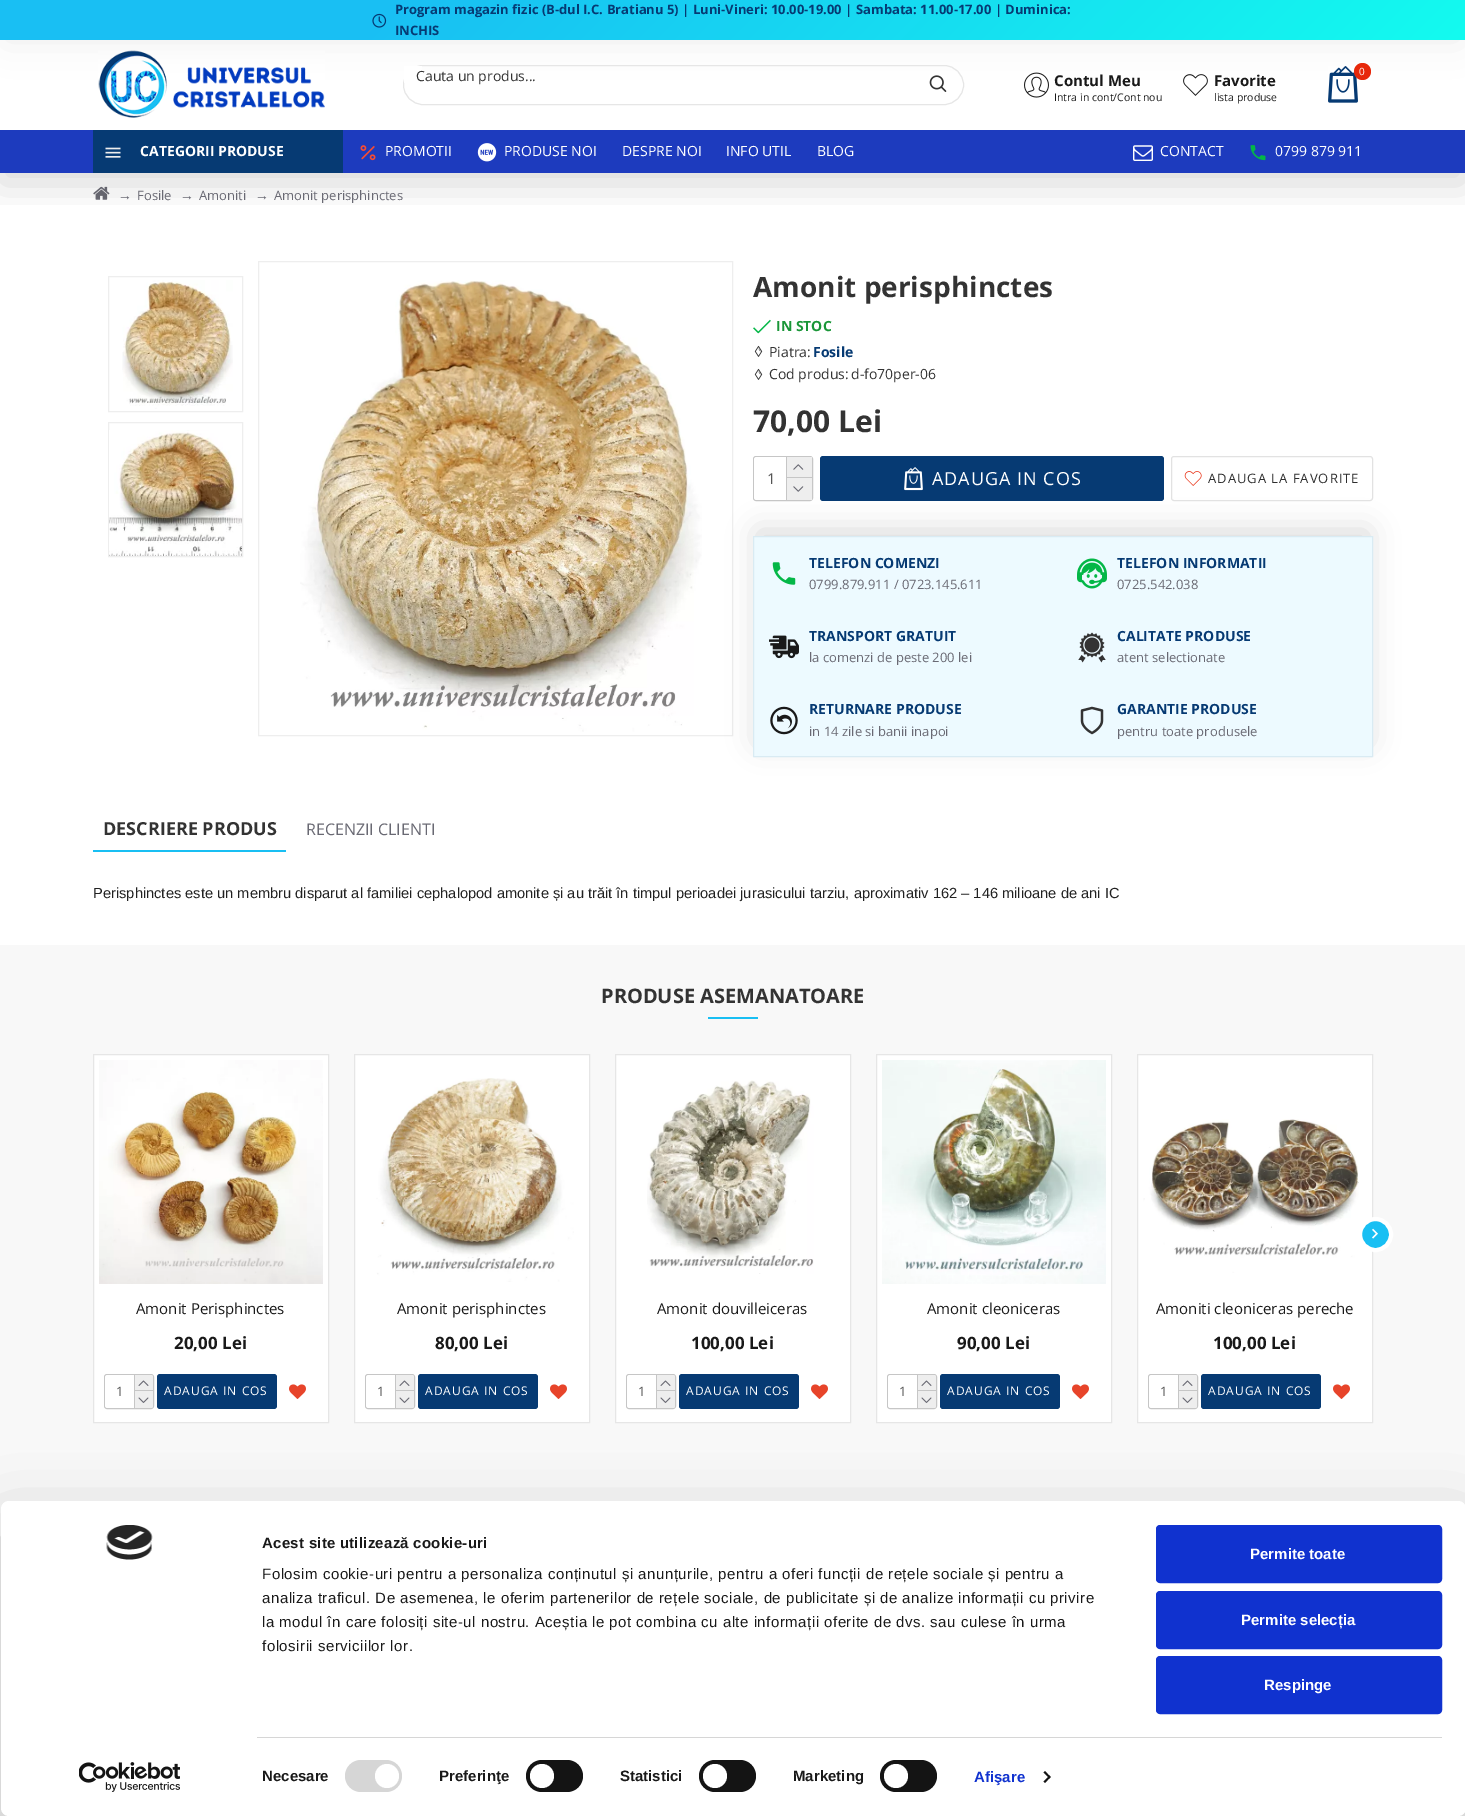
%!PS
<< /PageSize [1465 1816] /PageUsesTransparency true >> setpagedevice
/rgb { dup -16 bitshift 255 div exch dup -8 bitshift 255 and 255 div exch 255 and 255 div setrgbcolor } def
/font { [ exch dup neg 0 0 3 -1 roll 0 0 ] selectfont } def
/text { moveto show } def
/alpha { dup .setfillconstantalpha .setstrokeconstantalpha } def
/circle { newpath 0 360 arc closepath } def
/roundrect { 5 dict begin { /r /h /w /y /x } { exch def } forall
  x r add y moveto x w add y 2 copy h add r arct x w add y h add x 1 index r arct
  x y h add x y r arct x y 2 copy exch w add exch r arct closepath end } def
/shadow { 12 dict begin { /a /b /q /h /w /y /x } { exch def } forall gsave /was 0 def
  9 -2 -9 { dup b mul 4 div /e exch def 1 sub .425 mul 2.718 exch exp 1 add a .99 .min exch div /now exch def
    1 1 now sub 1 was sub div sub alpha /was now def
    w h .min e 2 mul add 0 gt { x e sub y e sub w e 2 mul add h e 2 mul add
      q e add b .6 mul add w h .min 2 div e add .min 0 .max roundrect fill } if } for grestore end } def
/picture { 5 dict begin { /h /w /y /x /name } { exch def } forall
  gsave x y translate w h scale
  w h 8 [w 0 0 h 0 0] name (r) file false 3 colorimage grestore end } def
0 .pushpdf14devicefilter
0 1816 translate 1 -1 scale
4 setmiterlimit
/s1 { /OpenSans-Bold 13 font 16#063A73 rgb } def
/s2 { /OpenSans-Regular 14 font 16#333333 rgb } def
/s3 { /OpenSans-Regular 10 font 16#FFFFFF rgb } def
/s4 { /OpenSans-Bold 15 font 16#191919 rgb } def
/s5 { /OpenSans-Regular 10.5 font 16#191919 rgb } def
/s6 { /OpenSans-Bold 14 font 16#FFFFFF rgb } def
/s7 { /OpenSans-Regular 14 font 16#FFFFFF rgb } def
/s8 { /LiberationSerif-Regular 14 font 16#696973 rgb } def
/s9 { /OpenSans-Regular 13 font 16#696973 rgb } def
/s10 { /OpenSans-Bold 28 font 16#333333 rgb } def
/s11 { /OpenSans-Bold 14 font 16#1A9638 rgb } def
/s12 { /OpenSans-Bold 14 font 16#063A73 rgb } def
/s13 { /OpenSans-Bold 30 font 16#333333 rgb } def
/s14 { /OpenSans-Regular 15 font 16#555555 rgb } def
/s15 { /OpenSans-Bold 18 font 16#333333 rgb } def
/s16 { /OpenSans-Regular 16 font 16#696973 rgb } def
/s17 { /LiberationSans-Regular 14.67 font 16#212121 rgb } def
/s18 { /OpenSans-Bold 20 font 16#333333 rgb } def
/s19 { /OpenSans-Regular 15 font 16#191919 rgb } def
/s20 { /OpenSans-Bold 17 font 16#191919 rgb } def
/s21 { /OpenSans-Regular 13 font 16#555555 rgb } def
/s22 { /LiberationSans-Bold 15 font 16#191919 rgb } def
/s23 { /LiberationSans-Bold 15 font 16#1032CF rgb } def
/s24 { /LiberationSans-Bold 15 font 16#FFFFFF rgb } def
16#FFFFFF rgb
0 0 1465 1816 rectfill
(pic12.raw) 93 186 17 14 picture
gsave
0 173 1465 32 rectclip
16#000000 rgb
0 10 1465 173 0 20 0.15 shadow
grestore
16#000000 rgb
5 10 1455 30 0 17.5 0.07 shadow
gsave 0 0 moveto 1465 0 lineto 1465 40 lineto 0 40 lineto closepath clip newpath
<< /ShadingType 2 /ColorSpace /DeviceRGB /Coords [1109 396 356 -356] /Extend [true true] /Function << /FunctionType 3 /Domain [0 1] /Functions [<< /FunctionType 2 /Domain [0 1] /C0 [0.075 0.984 0.937] /C1 [0.098 0.749 0.953] /N 1 >> << /FunctionType 2 /Domain [0 1] /C0 [0.098 0.749 0.953] /C1 [0.098 0.749 0.953] /N 1 >>] /Bounds [0.74] /Encode [0 1 0 1] >> >> shfill grestore
(pic1.raw) 372 13 15 15 picture
s1
(Program magazin fizic \(B-dul I.C. Bratianu 5\) | Luni-Vineri: 10.00-19.00 | Sambata: 11.00-17.00 | Duminica:) 395 14 text
(INCHIS) 395 35 text
(pic2.raw) 98 50 227 68 picture
16#E6E6E6 rgb
403.5 65.5 560 39 19.5 roundrect stroke
16#FFFFFF rgb
404 66 18 17 rectfill
s2
(Cauta un produs...) 416 81 text
(pic3.raw) 929 75 18 17 picture
(pic4.raw) 1328 66 30 37 picture
16#E7280A rgb
1362.5 71.5 8.5 circle fill
s3
(0) 1359 75 text
(pic5.raw) 1024 72 25 26 picture
s4
(Contul Meu) 1054 86 text
s5
(Intra in cont/Cont nou) 1054 101 text
(pic6.raw) 1183 74 25 22 picture
s4
(Favorite) 1214 86 text
s5
(lista produse) 1214 101 text
16#1D3BBE rgb
0 130 1465 43 rectfill
16#063A73 rgb
93 130 250 43 rectfill
(pic7.raw) 105 147 16 11 picture
s6
(CATEGORII PRODUSE) 140 156 text
(pic8.raw) 360 145 16 16 picture
s7
(PROMOTII) 385 156 text
(pic9.raw) 477 143 20 19 picture
(PRODUSE NOI) 504 156 text
(DESPRE NOI) 622 156 text
(INFO UTIL) 726 156 text
(BLOG) 817 156 text
(pic10.raw) 1133 145 20 16 picture
(CONTACT) 1160 156 text
(pic11.raw) 1250 145 16 16 picture
(0799 879 911) 1275 156 text
s8
(→) 118 200 text
s9
(Fosile) 137 200 text
s8
(→) 180 200 text
s9
(Amoniti) 199 200 text
s8
(→) 255 200 text
s9
(Amonit perisphinctes) 274 200 text
16#EEEEEE rgb
108.5 276.5 134 135 rectstroke
(pic13.raw) 122 280 111 129 picture
108.5 422.5 134 134 rectstroke
(pic14.raw) 109 430 133 126 picture
258.5 261.5 474 474 rectstroke
(pic15.raw) 300 280 402 452 picture
s10
(Amonit perisphinctes) 753 297 text
(pic16.raw) 753 319 18 15 picture
s11
(IN STOC) 776 331 text
(pic17.raw) 754 345 9 12 picture
s2
(Piatra:) 769 357 text
s12
(Fosile) 813 357 text
(pic17.raw) 754 368 9 12 picture
s2
(Cod produs:) 769 379 text
(d-fo70per-06) 851 379 text
s13
(70,00 Lei) 753 432 text
16#000000 rgb
758 531 610 211 0 15 0.15 shadow
16#C6C6C6 rgb
753.5 456.5 59 44 2.5 roundrect stroke
16#FFFFFF rgb
754 457 58 43 3 roundrect fill
s14
(1) 767 484 text
16#C6C6C6 rgb
786 457 1 43 rectfill
16#EEEEEE rgb
787 457 25 20 rectfill
16#C6C6C6 rgb
787 477 25 1 rectfill
(pic18.raw) 793 464 11 6 picture
16#EEEEEE rgb
787 478 25 22 rectfill
(pic19.raw) 793 486 11 6 picture
16#063A73 rgb
820 456 344 45 3 roundrect fill
(pic20.raw) 904 467 19 24 picture
/OpenSans-Regular 18 font
16#FFFFFF rgb
932 485 moveto 1 0 (ADAUGA IN COS) ashow
16#E2E2E2 rgb
1171.5 456.5 201 44 2.5 roundrect stroke
(pic21.raw) 1184 471 18 15 picture
/OpenSans-Regular 13 font
16#2D2D2D rgb
1208 483 moveto 1 0 (ADAUGA LA FAVORITE) ashow
16#EDFAFF rgb
753.5 536.5 moveto 1372.5 536.5 lineto 1372.5 756.5 lineto 753.5 756.5 lineto closepath gsave fill grestore
16#D9EBF3 rgb
stroke
(pic22.raw) 772 562 24 23 picture
s12
(TELEFON COMENZI) 809 568 text
s9
(0799.879.911 / 0723.145.611) 809 589 text
(pic23.raw) 1077 558 30 31 picture
s12
(TELEFON INFORMATII) 1117 568 text
s9
(0725.542.038) 1117 589 text
(pic24.raw) 769 635 30 24 picture
s12
(TRANSPORT GRATUIT) 809 641 text
s9
(la comenzi de peste 200 lei) 809 662 text
(pic25.raw) 1078 632 28 31 picture
s12
(CALITATE PRODUSE) 1117 641 text
s9
(atent selectionate) 1117 662 text
(pic26.raw) 770 706 28 29 picture
s12
(RETURNARE PRODUSE) 809 714 text
s9
(in 14 zile si banii inapoi) 809 736 text
(pic27.raw) 1080 706 24 29 picture
s12
(GARANTIE PRODUSE) 1117 714 text
s9
(pentru toate produsele) 1117 736 text
16#19BFF3 rgb
93 850 193 2 rectfill
s15
(DESCRIERE PRODUS) 103 835 text
s16
(RECENZII CLIENTI) 306 835 text
s17
(Perisphinctes este un membru disparut al familiei cephalopod amonite și au trăit în timpul perioadei jurasicului tarziu, aproximativ 162 – 146 milioane de ani IC) 93 898 text
16#F8F8F8 rgb
0 945 1465 568 rectfill
s18
(PRODUSE ASEMANATOARE) 601 1003 text
16#19BFF3 rgb
708 1017 50 2 rectfill
16#FFFFFF rgb
1137.5 1054.5 moveto 1372.5 1054.5 lineto 1372.5 1422.5 lineto 1137.5 1422.5 lineto closepath gsave fill grestore
16#E6E6E6 rgb
stroke
(pic36.raw) 1143 1119 216 154 picture
16#19BFF3 rgb
1375.5 1234.5 15.5 circle gsave fill grestore
16#FFFFFF rgb
4 setlinewidth
stroke
(pic28.raw) 1372 1228 6 11 picture
93.5 1054.5 moveto 328.5 1054.5 lineto 328.5 1422.5 lineto 93.5 1422.5 lineto closepath gsave fill grestore
16#E6E6E6 rgb
1 setlinewidth
stroke
(pic29.raw) 99 1060 224 224 picture
s19
(Amonit Perisphinctes) 136 1314 text
s20
(20,00 Lei) 174 1349 text
16#C6C6C6 rgb
104.5 1374.5 49 34 2.5 roundrect stroke
gsave
105 1375 48 33 2 roundrect clip newpath
16#FFFFFF rgb
105 1375 48 33 3 roundrect fill
grestore
s21
(1) 116 1396 text
16#C6C6C6 rgb
134 1375 1 33 rectfill
16#EEEEEE rgb
135 1375 moveto 151 1375 lineto 152 1375 153 1376 153 1377 curveto 153 1390 lineto 135 1390 lineto closepath fill
16#C6C6C6 rgb
135 1390 18 1 rectfill
(pic30.raw) 138 1380 11 6 picture
16#EEEEEE rgb
135 1391 moveto 153 1391 lineto 153 1406 lineto 153 1407 152 1408 151 1408 curveto 135 1408 lineto closepath fill
(pic31.raw) 138 1397 11 6 picture
16#063A73 rgb
157 1374 120 35 3 roundrect fill
/OpenSans-Regular 12 font
16#FFFFFF rgb
164 1395 moveto 1 0 (ADAUGA IN COS) ashow
(pic32.raw) 289 1384 17 15 picture
354.5 1054.5 moveto 589.5 1054.5 lineto 589.5 1422.5 lineto 354.5 1422.5 lineto closepath gsave fill grestore
16#E6E6E6 rgb
stroke
(pic33.raw) 376 1078 198 204 picture
s19
(Amonit perisphinctes) 397 1314 text
s20
(80,00 Lei) 435 1349 text
16#C6C6C6 rgb
365.5 1374.5 49 34 2.5 roundrect stroke
gsave
366 1375 48 33 2 roundrect clip newpath
16#FFFFFF rgb
366 1375 48 33 3 roundrect fill
grestore
s21
(1) 377 1396 text
16#C6C6C6 rgb
395 1375 1 33 rectfill
16#EEEEEE rgb
396 1375 moveto 412 1375 lineto 413 1375 414 1376 414 1377 curveto 414 1390 lineto 396 1390 lineto closepath fill
16#C6C6C6 rgb
396 1390 18 1 rectfill
(pic30.raw) 399 1380 11 6 picture
16#EEEEEE rgb
396 1391 moveto 414 1391 lineto 414 1406 lineto 414 1407 413 1408 412 1408 curveto 396 1408 lineto closepath fill
(pic31.raw) 399 1397 11 6 picture
16#063A73 rgb
418 1374 120 35 3 roundrect fill
/OpenSans-Regular 12 font
16#FFFFFF rgb
425 1395 moveto 1 0 (ADAUGA IN COS) ashow
(pic32.raw) 550 1384 17 15 picture
615.5 1054.5 moveto 850.5 1054.5 lineto 850.5 1422.5 lineto 615.5 1422.5 lineto closepath gsave fill grestore
16#E6E6E6 rgb
stroke
(pic34.raw) 647 1080 167 194 picture
s19
(Amonit douvilleiceras) 657 1314 text
s20
(100,00 Lei) 691 1349 text
16#C6C6C6 rgb
626.5 1374.5 49 34 2.5 roundrect stroke
gsave
627 1375 48 33 2 roundrect clip newpath
16#FFFFFF rgb
627 1375 48 33 3 roundrect fill
grestore
s21
(1) 638 1396 text
16#C6C6C6 rgb
656 1375 1 33 rectfill
16#EEEEEE rgb
657 1375 moveto 673 1375 lineto 674 1375 675 1376 675 1377 curveto 675 1390 lineto 657 1390 lineto closepath fill
16#C6C6C6 rgb
657 1390 18 1 rectfill
(pic30.raw) 660 1380 11 6 picture
16#EEEEEE rgb
657 1391 moveto 675 1391 lineto 675 1406 lineto 675 1407 674 1408 673 1408 curveto 657 1408 lineto closepath fill
(pic31.raw) 660 1397 11 6 picture
16#063A73 rgb
679 1374 120 35 3 roundrect fill
/OpenSans-Regular 12 font
16#FFFFFF rgb
686 1395 moveto 1 0 (ADAUGA IN COS) ashow
(pic32.raw) 811 1384 17 15 picture
876.5 1054.5 moveto 1111.5 1054.5 lineto 1111.5 1422.5 lineto 876.5 1422.5 lineto closepath gsave fill grestore
16#E6E6E6 rgb
stroke
(pic35.raw) 882 1060 224 224 picture
s19
(Amonit cleoniceras) 927 1314 text
s20
(90,00 Lei) 957 1349 text
16#C6C6C6 rgb
887.5 1374.5 49 34 2.5 roundrect stroke
gsave
888 1375 48 33 2 roundrect clip newpath
16#FFFFFF rgb
888 1375 48 33 3 roundrect fill
grestore
s21
(1) 899 1396 text
16#C6C6C6 rgb
917 1375 1 33 rectfill
16#EEEEEE rgb
918 1375 moveto 934 1375 lineto 935 1375 936 1376 936 1377 curveto 936 1390 lineto 918 1390 lineto closepath fill
16#C6C6C6 rgb
918 1390 18 1 rectfill
(pic30.raw) 921 1380 11 6 picture
16#EEEEEE rgb
918 1391 moveto 936 1391 lineto 936 1406 lineto 936 1407 935 1408 934 1408 curveto 918 1408 lineto closepath fill
(pic31.raw) 921 1397 11 6 picture
16#063A73 rgb
940 1374 120 35 3 roundrect fill
/OpenSans-Regular 12 font
16#FFFFFF rgb
947 1395 moveto 1 0 (ADAUGA IN COS) ashow
(pic32.raw) 1072 1384 17 15 picture
s19
(Amoniti cleoniceras pereche) 1156 1314 text
s20
(100,00 Lei) 1213 1349 text
16#C6C6C6 rgb
1148.5 1374.5 49 34 2.5 roundrect stroke
gsave
1149 1375 48 33 2 roundrect clip newpath
16#FFFFFF rgb
1149 1375 48 33 3 roundrect fill
grestore
s21
(1) 1160 1396 text
16#C6C6C6 rgb
1178 1375 1 33 rectfill
16#EEEEEE rgb
1179 1375 moveto 1195 1375 lineto 1196 1375 1197 1376 1197 1377 curveto 1197 1390 lineto 1179 1390 lineto closepath fill
16#C6C6C6 rgb
1179 1390 18 1 rectfill
(pic30.raw) 1182 1380 11 6 picture
16#EEEEEE rgb
1179 1391 moveto 1197 1391 lineto 1197 1406 lineto 1197 1407 1196 1408 1195 1408 curveto 1179 1408 lineto closepath fill
(pic31.raw) 1182 1397 11 6 picture
16#063A73 rgb
1201 1374 120 35 3 roundrect fill
/OpenSans-Regular 12 font
16#FFFFFF rgb
1208 1395 moveto 1 0 (ADAUGA IN COS) ashow
(pic32.raw) 1333 1384 17 15 picture
16#000000 rgb
1 1531 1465 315 8 35 0.3 shadow
16#FFFFFF rgb
1 1501 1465 315 8 roundrect fill
(pic37.raw) 106 1525 47 35 picture
(pic38.raw) 79 1762 101 30 picture
/LiberationSans-Bold 15 font
16#191919 rgb
262 1548 moveto 0.25 0 (Acest site utilizează cookie-uri) ashow
/LiberationSans-Regular 15 font
262 1579 moveto 0.5 0 (Folosim cookie-uri pentru a personaliza conținutul și anunțurile, pentru a oferi funcții de rețele sociale și pentru a) ashow
262 1603 moveto 0.5 0 (analiza traficul. De asemenea, le oferim partenerilor de rețele sociale, de publicitate și de analize informații cu privire) ashow
262 1627 moveto 0.5 0 (la modul în care folosiți site-ul nostru. Aceștia le pot combina cu alte informații oferite de dvs. sau culese în urma) ashow
262 1651 moveto 0.5 0 (folosirii serviciilor lor.) ashow
16#D6D6D6 rgb
257 1737 1185 1 rectfill
s22
(Necesare) 262 1781 text
16#D6D6D6 rgb
345 1760 57 32 16 roundrect fill
16#FFFFFF rgb
387 1776 12 circle fill
s22
(Preferinţe) 439 1781 text
16#141414 rgb
526 1760 57 32 16 roundrect fill
16#FFFFFF rgb
542 1776 12 circle fill
s22
(Statistici) 620 1781 text
16#141414 rgb
699 1760 57 32 16 roundrect fill
16#FFFFFF rgb
715 1776 12 circle fill
s22
(Marketing) 793 1781 text
16#141414 rgb
880 1760 57 32 16 roundrect fill
16#FFFFFF rgb
896 1776 12 circle fill
s23
(Afişare) 974 1782 text
16#141414 rgb
1045 1771 moveto 1050.5 1777 lineto 1049.5 1778.5 lineto 1043.5 1772.5 lineto closepath fill
1049.5 1775.5 moveto 1050.5 1777 lineto 1045 1783 lineto 1043.5 1781.5 lineto closepath fill
16#1032CF rgb
1157 1526 284 56 3 roundrect gsave fill grestore
2 setlinewidth
stroke
s24
(Permite toate) 1250 1559 text
16#1032CF rgb
1157 1592 284 56 3 roundrect gsave fill grestore
stroke
s24
(Permite selecția) 1241 1625 text
16#1032CF rgb
1157 1657 284 56 3 roundrect gsave fill grestore
stroke
s24
(Respinge) 1264 1690 text
.poppdf14devicefilter showpage
